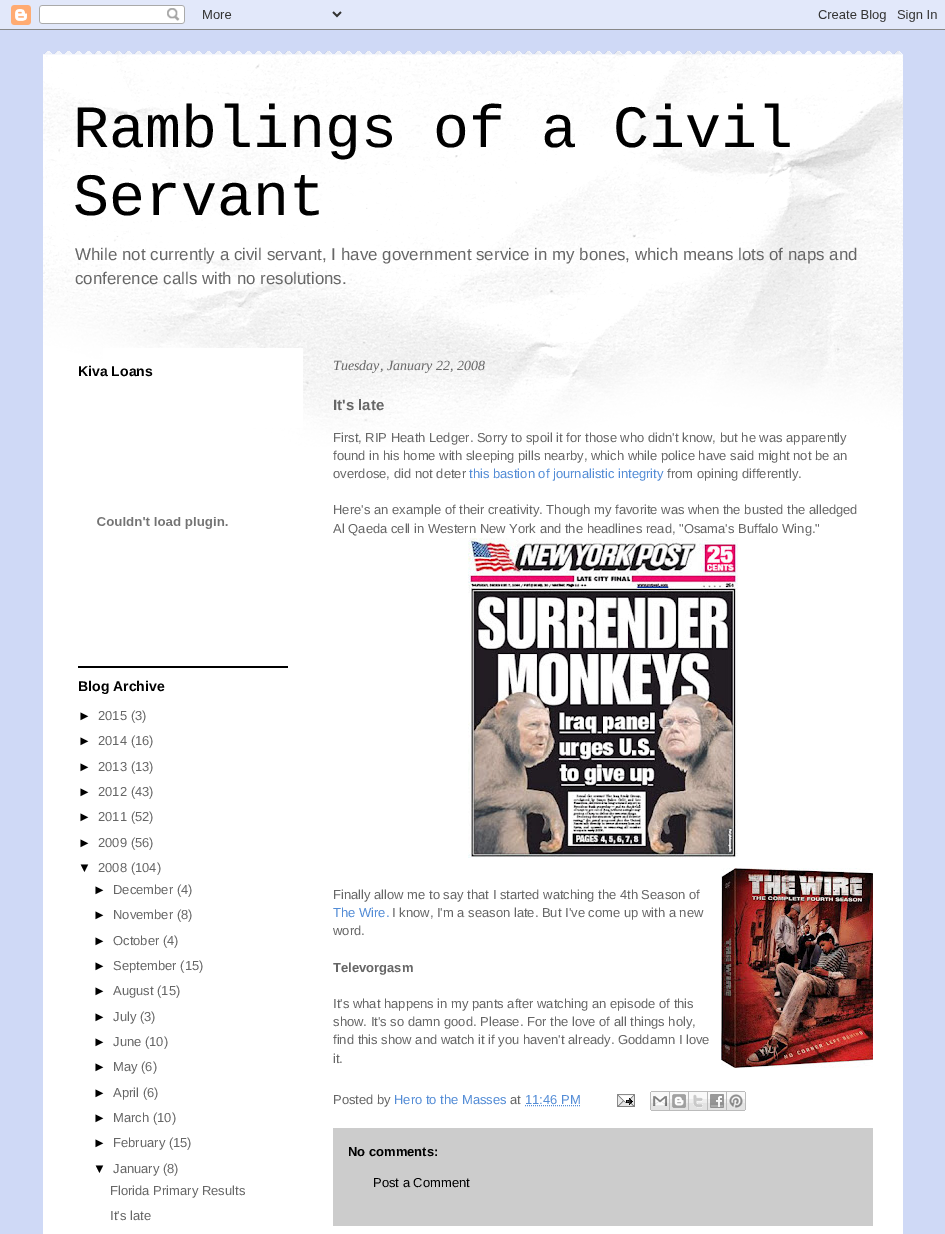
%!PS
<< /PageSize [945 1234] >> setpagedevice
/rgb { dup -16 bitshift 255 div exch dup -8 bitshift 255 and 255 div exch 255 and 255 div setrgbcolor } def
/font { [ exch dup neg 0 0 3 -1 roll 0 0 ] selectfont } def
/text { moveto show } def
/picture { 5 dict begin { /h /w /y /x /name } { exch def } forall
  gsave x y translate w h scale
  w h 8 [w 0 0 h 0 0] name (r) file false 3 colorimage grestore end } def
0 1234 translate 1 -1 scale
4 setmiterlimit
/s1 { /LiberationMono-Regular 60 font 16#000000 rgb } def
/s2 { /LiberationSans-Regular 16.9 font 16#666666 rgb } def
/s3 { /LiberationSans-Bold 14 font 16#000000 rgb } def
/s4 { /LiberationSans-Regular 13 font 16#000000 rgb } def
/s5 { /LiberationSans-Regular 13 font 16#666666 rgb } def
/s6 { /LiberationSerif-Italic 14 font 16#666666 rgb } def
/s7 { /LiberationSans-Bold 15 font 16#666666 rgb } def
/s8 { /LiberationSans-Regular 13 font 16#538CD6 rgb } def
/s9 { /LiberationSans-Bold 13 font 16#666666 rgb } def
/s10 { /LiberationSans-Bold 13 font 16#000000 rgb } def
16#CFD9F6 rgb
0 0 945 1234 rectfill
(pic1.raw) 0 0 945 30 picture
(pic2.raw) 43 51 860 4 picture
16#FFFFFF rgb
43 55 860 1179 rectfill
(pic3.raw) 43 55 860 392 picture
s1
(Ramblings of a Civil) 73 147 text
(Servant) 73 215 text
s2
(While not currently a civil servant, I have government service in my bones, which means lots of naps and) 75 260 text
(conference calls with no resolutions.) 75 284 text
16#FFFFFF rgb
103 348 200 80 rectfill
16#000000 rgb
78 666 210 2 rectfill
s3
(Kiva Loans) 78 376 text
(pic4.raw) 97 517 131 12 picture
(Blog Archive) 78 691 text
s4
(►) 78 720 text
s5
(2015 \(3\)) 98 720 text
s4
(►) 78 745 text
s5
(2014 \(16\)) 98 745 text
s4
(►) 78 771 text
s5
(2013 \(13\)) 98 771 text
s4
(►) 78 796 text
s5
(2012 \(43\)) 98 796 text
s4
(►) 78 821 text
s5
(2011 \(52\)) 98 821 text
s4
(►) 78 847 text
s5
(2009 \(56\)) 98 847 text
s4
(▼) 78 872 text
s5
(2008 \(104\)) 98 872 text
s4
(►) 93 894 text
s5
(December \(4\)) 113 894 text
s4
(►) 93 919 text
s5
(November \(8\)) 113 919 text
s4
(►) 93 945 text
s5
(October \(4\)) 113 945 text
s4
(►) 93 970 text
s5
(September \(15\)) 113 970 text
s4
(►) 93 995 text
s5
(August \(15\)) 113 995 text
s4
(►) 93 1021 text
s5
(July \(3\)) 113 1021 text
s4
(►) 93 1046 text
s5
(June \(10\)) 113 1046 text
s4
(►) 93 1071 text
s5
(May \(6\)) 113 1071 text
s4
(►) 93 1097 text
s5
(April \(6\)) 113 1097 text
s4
(►) 93 1122 text
s5
(March \(10\)) 113 1122 text
s4
(►) 93 1147 text
s5
(February \(15\)) 113 1147 text
s4
(▼) 93 1173 text
s5
(January \(8\)) 113 1173 text
(Florida Primary Results) 110 1195 text
(It's late) 110 1220 text
s6
(Tuesday, January 22, 2008) 333 370 text
s7
(It's late) 333 410 text
s5
(First, RIP Heath Ledger. Sorry to spoil it for those who didn't know, but he was apparently) 333 442 text
(found in his home with sleeping pills nearby, which while police have said might not be an) 333 460 text
(overdose, did not deter) 333 478 text
s8
(this bastion of journalistic integrity) 469 478 text
s5
(from opining differently.) 667 478 text
(Here's an example of their creativity. Though my favorite was when the busted the alledged) 333 514 text
(Al Qaeda cell in Western New York and the headlines read, "Osama's Buffalo Wing.") 333 533 text
(pic5.raw) 468 538 270 320 picture
(Finally allow me to say that I started watching the 4th Season of) 333 899 text
(pic6.raw) 721 868 152 200 picture
s8
(The Wire.) 333 917 text
s5
(I know, I'm a season late. But I've come up with a new) 392 917 text
(word.) 333 935 text
s9
(Televorgasm) 333 972 text
s5
(It's what happens in my pants after watching an episode of this) 333 1008 text
(show. It's so damn good. Please. For the love of all things holy,) 333 1026 text
(find this show and watch it if you haven't already. Goddamn I love) 333 1044 text
(it.) 333 1063 text
(Posted by) 333 1104 text
s8
(Hero to the Masses) 394 1104 text
s5
(at) 510 1104 text
s8
(11:46 PM) 525 1104 text
[1 1] 0 setdash
525 1105.5 moveto 580.5 1105.5 lineto stroke
(pic7.raw) 617 1094 18 13 picture
(pic8.raw) 650 1091 20 20 picture
(pic9.raw) 670 1091 19 20 picture
(pic10.raw) 689 1091 19 20 picture
(pic11.raw) 708 1091 19 20 picture
(pic12.raw) 727 1091 19 20 picture
16#CCCCCC rgb
333 1128 540 98 rectfill
s10
(No comments:) 348 1156 text
s4
(Post a Comment) 373 1187 text
showpage
